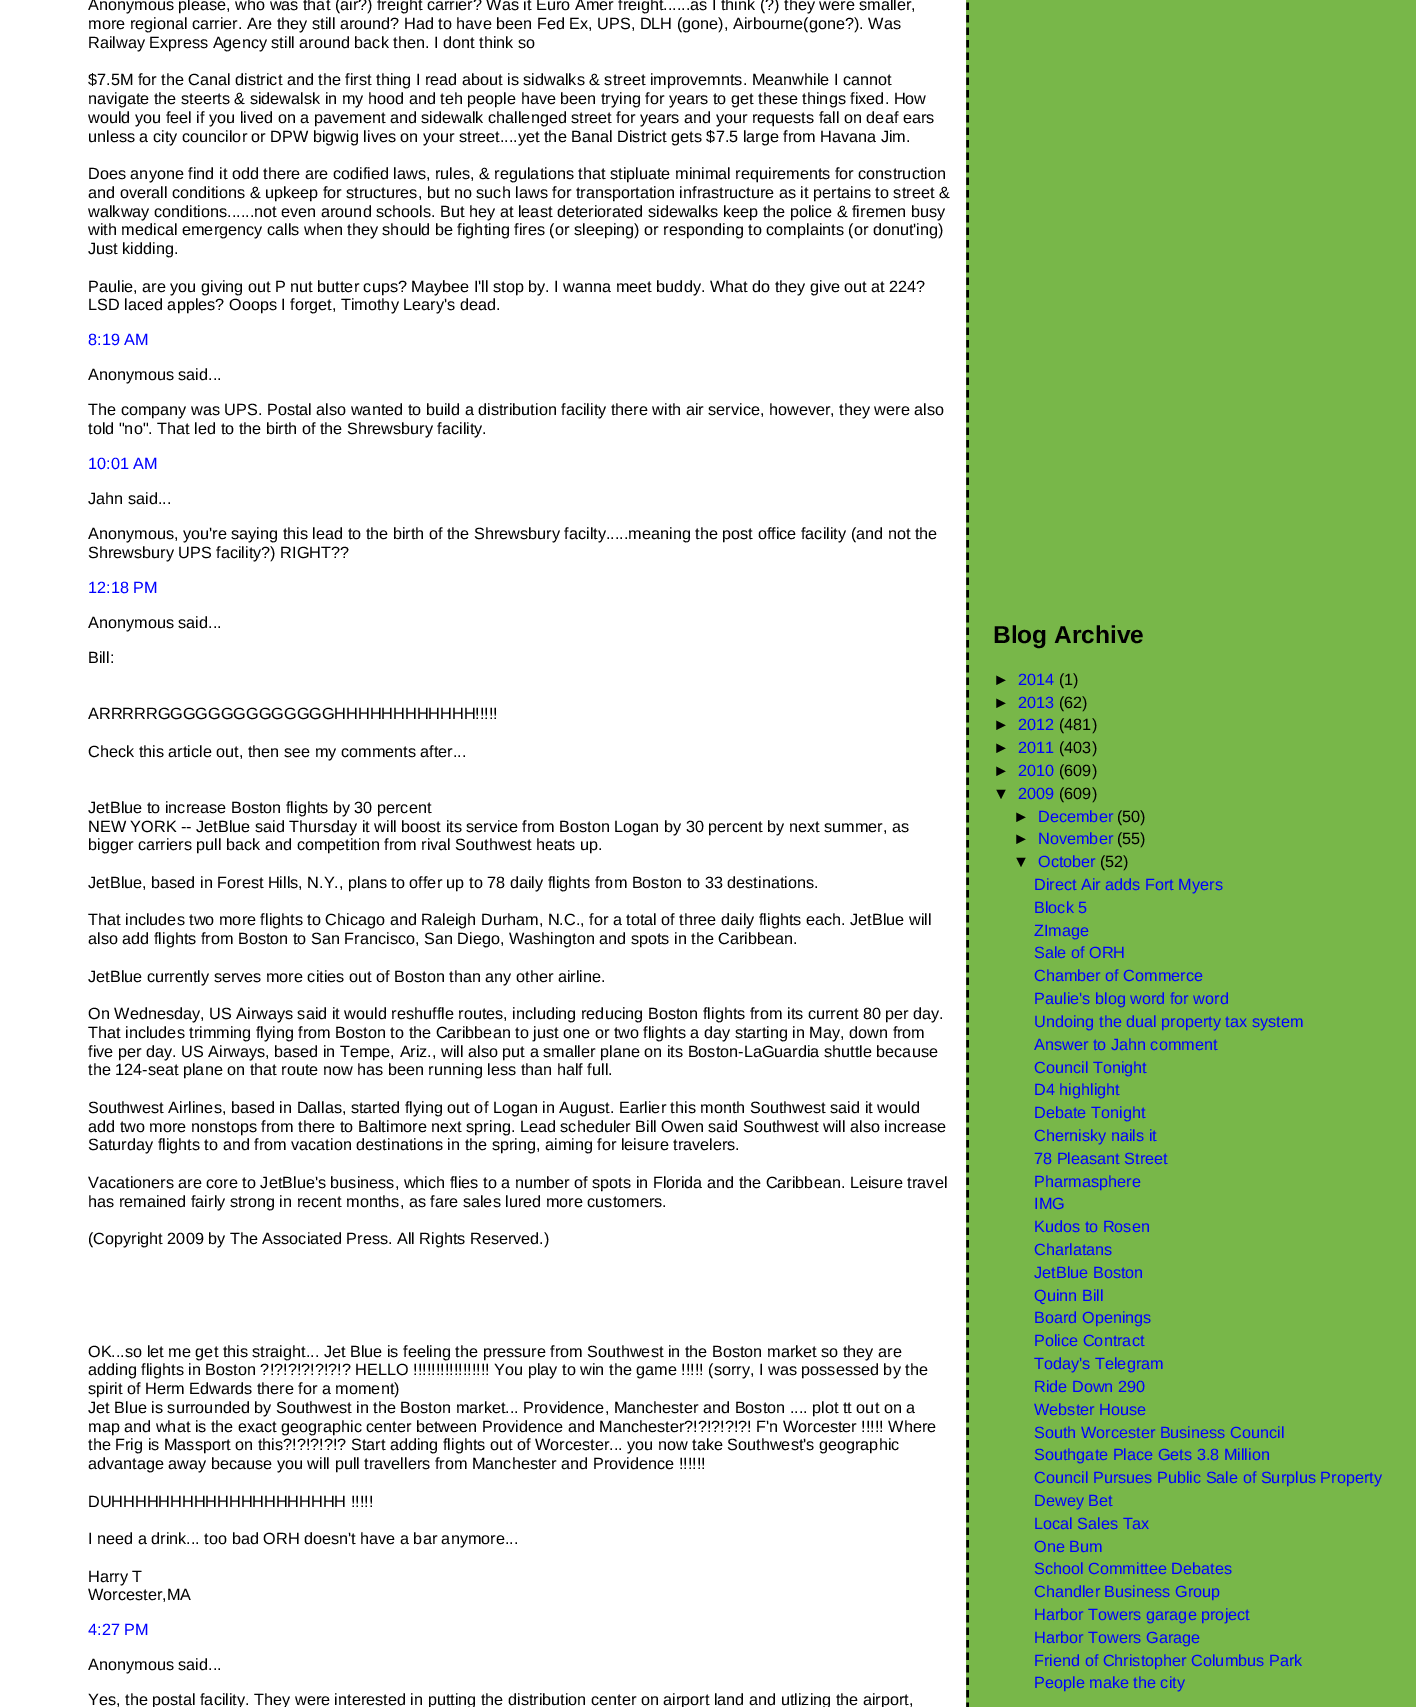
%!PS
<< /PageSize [1416 1707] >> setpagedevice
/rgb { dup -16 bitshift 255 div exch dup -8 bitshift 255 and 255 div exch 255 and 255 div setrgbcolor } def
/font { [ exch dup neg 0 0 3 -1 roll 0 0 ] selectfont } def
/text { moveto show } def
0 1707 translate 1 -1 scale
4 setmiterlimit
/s1 { /LiberationSans-Regular 16.25 font 16#000000 rgb } def
/s2 { /LiberationSans-Regular 16.25 font 16#0000FF rgb } def
/s3 { /LiberationSans-Bold 24.5 font 16#000000 rgb } def
16#FFFFFF rgb
0 0 1416 1707 rectfill
s1
(Anonymous please, who was that \(air?\) freight carrier? Was it Euro Amer freight......as I think \(?\) they were smaller,) 88 10 text
(more regional carrier. Are they still around? Had to have been Fed Ex, UPS, DLH \(gone\), Airbourne\(gone?\). Was) 88 29 text
(Railway Express Agency still around back then. I dont think so) 88 48 text
($7.5M for the Canal district and the first thing I read about is sidwalks & street improvemnts. Meanwhile I cannot) 88 85 text
(navigate the steerts & sidewalsk in my hood and teh people have been trying for years to get these things fixed. How) 88 104 text
(would you feel if you lived on a pavement and sidewalk challenged street for years and your requests fall on deaf ears) 88 123 text
(unless a city councilor or DPW bigwig lives on your street....yet the Banal District gets $7.5 large from Havana Jim.) 88 142 text
(Does anyone find it odd there are codified laws, rules, & regulations that stipluate minimal requirements for construction) 88 179 text
(and overall conditions & upkeep for structures, but no such laws for transportation infrastructure as it pertains to street &) 88 198 text
(walkway conditions......not even around schools. But hey at least deteriorated sidewalks keep the police & firemen busy) 88 217 text
(with medical emergency calls when they should be fighting fires \(or sleeping\) or responding to complaints \(or donut'ing\)) 88 235 text
(Just kidding.) 88 254 text
(Paulie, are you giving out P nut butter cups? Maybee I'll stop by. I wanna meet buddy. What do they give out at 224?) 88 292 text
(LSD laced apples? Ooops I forget, Timothy Leary's dead.) 88 310 text
s2
(8:19 AM) 88 345 text
s1
(Anonymous said...) 88 380 text
(The company was UPS. Postal also wanted to build a distribution facility there with air service, however, they were also) 88 415 text
(told "no". That led to the birth of the Shrewsbury facility.) 88 434 text
s2
(10:01 AM) 88 469 text
s1
(Jahn said...) 88 504 text
(Anonymous, you're saying this lead to the birth of the Shrewsbury facilty.....meaning the post office facility \(and not the) 88 539 text
(Shrewsbury UPS facility?\) RIGHT??) 88 558 text
s2
(12:18 PM) 88 593 text
s1
(Anonymous said...) 88 628 text
(Bill:) 88 663 text
(ARRRRRGGGGGGGGGGGGGGHHHHHHHHHHHH!!!!!) 88 719 text
(Check this article out, then see my comments after...) 88 757 text
(JetBlue to increase Boston flights by 30 percent) 88 813 text
(NEW YORK -- JetBlue said Thursday it will boost its service from Boston Logan by 30 percent by next summer, as) 88 832 text
(bigger carriers pull back and competition from rival Southwest heats up.) 88 850 text
(JetBlue, based in Forest Hills, N.Y., plans to offer up to 78 daily flights from Boston to 33 destinations.) 88 888 text
(That includes two more flights to Chicago and Raleigh Durham, N.C., for a total of three daily flights each. JetBlue will) 88 925 text
(also add flights from Boston to San Francisco, San Diego, Washington and spots in the Caribbean.) 88 944 text
(JetBlue currently serves more cities out of Boston than any other airline.) 88 982 text
(On Wednesday, US Airways said it would reshuffle routes, including reducing Boston flights from its current 80 per day.) 88 1019 text
(That includes trimming flying from Boston to the Caribbean to just one or two flights a day starting in May, down from) 88 1038 text
(five per day. US Airways, based in Tempe, Ariz., will also put a smaller plane on its Boston-LaGuardia shuttle because) 88 1057 text
(the 124-seat plane on that route now has been running less than half full.) 88 1075 text
(Southwest Airlines, based in Dallas, started flying out of Logan in August. Earlier this month Southwest said it would) 88 1113 text
(add two more nonstops from there to Baltimore next spring. Lead scheduler Bill Owen said Southwest will also increase) 88 1132 text
(Saturday flights to and from vacation destinations in the spring, aiming for leisure travelers.) 88 1150 text
(Vacationers are core to JetBlue's business, which flies to a number of spots in Florida and the Caribbean. Leisure travel) 88 1188 text
(has remained fairly strong in recent months, as fare sales lured more customers.) 88 1207 text
(\(Copyright 2009 by The Associated Press. All Rights Reserved.\)) 88 1244 text
(OK...so let me get this straight... Jet Blue is feeling the pressure from Southwest in the Boston market so they are) 88 1357 text
(adding flights in Boston ?!?!?!?!?!?!? HELLO !!!!!!!!!!!!!!!!! You play to win the game !!!!! \(sorry, I was possessed by the) 88 1375 text
(spirit of Herm Edwards there for a moment\)) 88 1394 text
(Jet Blue is surrounded by Southwest in the Boston market... Providence, Manchester and Boston .... plot tt out on a) 88 1413 text
(map and what is the exact geographic center between Providence and Manchester?!?!?!?!?! F'n Worcester !!!!! Where) 88 1432 text
(the Frig is Massport on this?!?!?!?!? Start adding flights out of Worcester... you now take Southwest's geographic) 88 1450 text
(advantage away because you will pull travellers from Manchester and Providence !!!!!!) 88 1469 text
(DUHHHHHHHHHHHHHHHHHHHH !!!!!) 88 1507 text
(I need a drink... too bad ORH doesn't have a bar anymore...) 88 1544 text
(Harry T) 88 1582 text
(Worcester,MA) 88 1600 text
s2
(4:27 PM) 88 1635 text
s1
(Anonymous said...) 88 1670 text
(Yes, the postal facility. They were interested in putting the distribution center on airport land and utlizing the airport,) 88 1705 text
16#78B749 rgb
966 0 450 1707 rectfill
16#000000 rgb
2.5 setlinewidth
[7.5 5] 0 setdash
967.5 -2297.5 moveto 967.5 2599 lineto stroke
s3
(Blog Archive) 993 643 text
s1
(►) 993 685 text
s2
(2014) 1018 685 text
s1
(\(1\)) 1059 685 text
(►) 993 708 text
s2
(2013) 1018 708 text
s1
(\(62\)) 1059 708 text
(►) 993 730 text
s2
(2012) 1018 730 text
s1
(\(481\)) 1059 730 text
(►) 993 753 text
s2
(2011) 1018 753 text
s1
(\(403\)) 1059 753 text
(►) 993 776 text
s2
(2010) 1018 776 text
s1
(\(609\)) 1059 776 text
(▼) 993 799 text
s2
(2009) 1018 799 text
s1
(\(609\)) 1059 799 text
(►) 1013 822 text
s2
(December) 1038 822 text
s1
(\(50\)) 1117 822 text
(►) 1013 844 text
s2
(November) 1038 844 text
s1
(\(55\)) 1117 844 text
(▼) 1013 867 text
s2
(October) 1038 867 text
s1
(\(52\)) 1100 867 text
s2
(Direct Air adds Fort Myers) 1034 890 text
(Block 5) 1034 913 text
(ZImage) 1034 936 text
(Sale of ORH) 1034 958 text
(Chamber of Commerce) 1034 981 text
(Paulie's blog word for word) 1034 1004 text
(Undoing the dual property tax system) 1034 1027 text
(Answer to Jahn comment) 1034 1050 text
(Council Tonight) 1034 1073 text
(D4 highlight) 1034 1095 text
(Debate Tonight) 1034 1118 text
(Chernisky nails it) 1034 1141 text
(78 Pleasant Street) 1034 1164 text
(Pharmasphere) 1034 1187 text
(IMG) 1034 1209 text
(Kudos to Rosen) 1034 1232 text
(Charlatans) 1034 1255 text
(JetBlue Boston) 1034 1278 text
(Quinn Bill) 1034 1301 text
(Board Openings) 1034 1323 text
(Police Contract) 1034 1346 text
(Today's Telegram) 1034 1369 text
(Ride Down 290) 1034 1392 text
(Webster House) 1034 1415 text
(South Worcester Business Council) 1034 1438 text
(Southgate Place Gets 3.8 Million) 1034 1460 text
(Council Pursues Public Sale of Surplus Property) 1034 1483 text
(Dewey Bet) 1034 1506 text
(Local Sales Tax) 1034 1529 text
(One Bum) 1034 1552 text
(School Committee Debates) 1034 1574 text
(Chandler Business Group) 1034 1597 text
(Harbor Towers garage project) 1034 1620 text
(Harbor Towers Garage) 1034 1643 text
(Friend of Christopher Columbus Park) 1034 1666 text
(People make the city) 1034 1688 text
showpage
